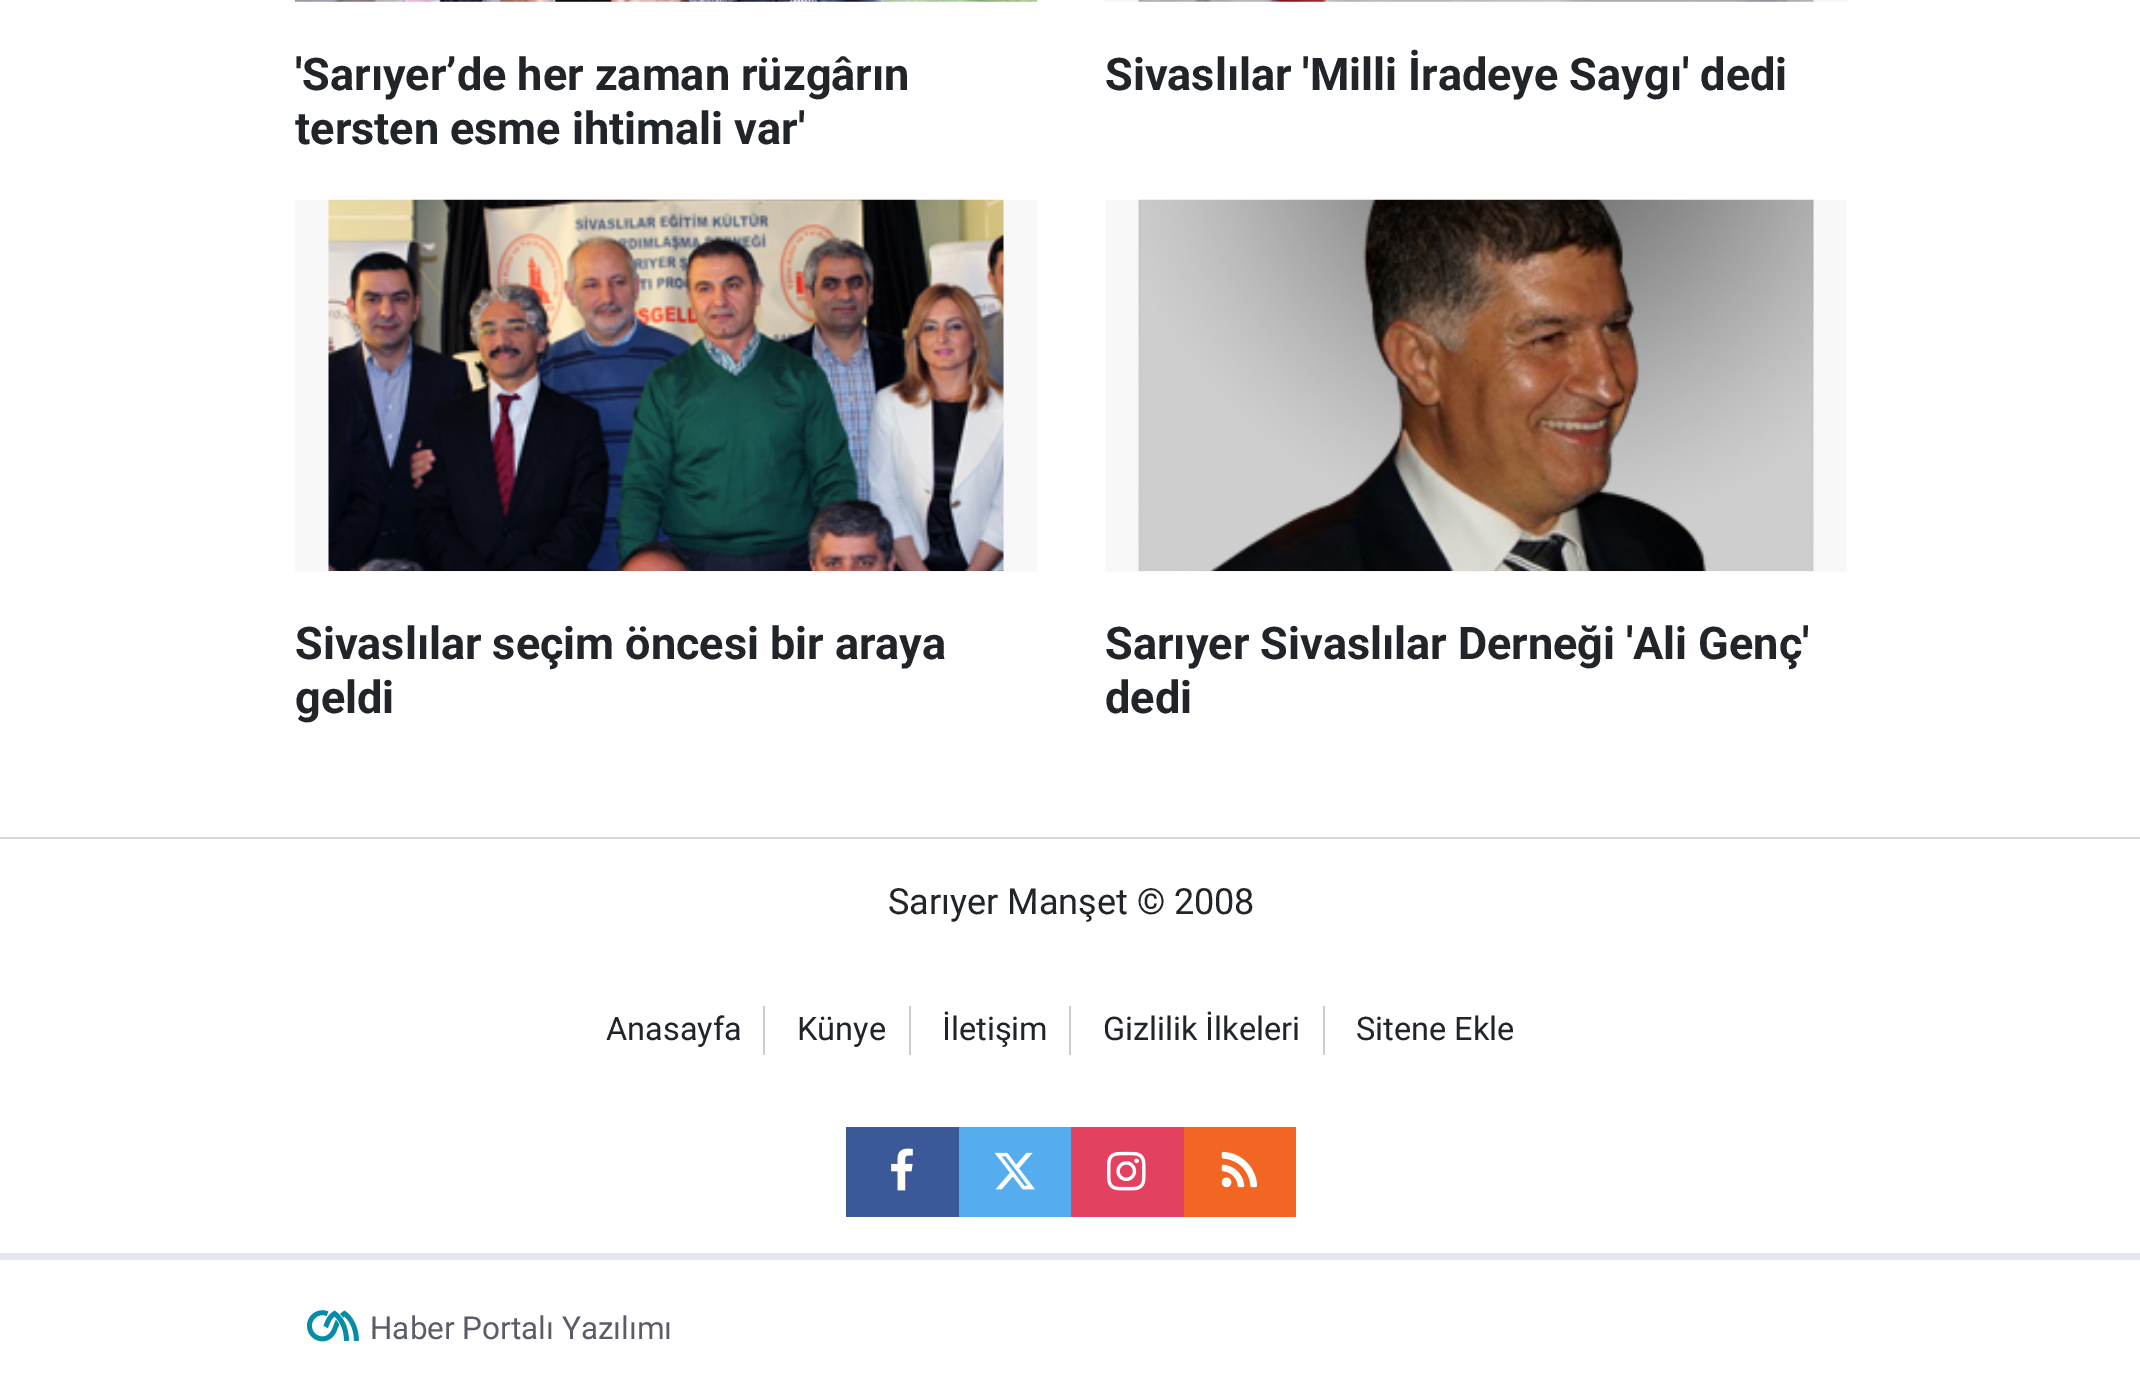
%!PS
<< /PageSize [2140 1386] >> setpagedevice
/rgb { dup -16 bitshift 255 div exch dup -8 bitshift 255 and 255 div exch 255 and 255 div setrgbcolor } def
/font { [ exch dup neg 0 0 3 -1 roll 0 0 ] selectfont } def
/text { moveto show } def
/picture { 5 dict begin { /h /w /y /x /name } { exch def } forall
  gsave x y translate w h scale
  w h 8 [w 0 0 h 0 0] name (r) file false 3 colorimage grestore end } def
0 1386 translate 1 -1 scale
4 setmiterlimit
/s1 { /Roboto-Bold 45 font 16#212529 rgb } def
/s2 { /Roboto-Regular 36 font 16#212529 rgb } def
/s3 { /Roboto-Regular 32.5 font 16#212529 rgb } def
/s4 { /Roboto-Regular 31.5 font 16#5A5C67 rgb } def
16#FFFFFF rgb
0 0 2140 1386 rectfill
(pic1.raw) 294 0 744 2 picture
s1
('Sarıyer’de her zaman rüzgârın) 295 90 text
(tersten esme ihtimali var') 295 144 text
16#F8F8F8 rgb
1105 0 742 2 rectfill
(pic2.raw) 1138 0 676 2 picture
s1
(Sivaslılar 'Milli İradeye Saygı' dedi) 1105 90 text
16#F8F8F8 rgb
295 200 742 372 rectfill
(pic3.raw) 328 199 676 372 picture
s1
(Sivaslılar seçim öncesi bir araya) 295 659 text
(geldi) 295 713 text
16#F8F8F8 rgb
1105 200 742 372 rectfill
(pic4.raw) 1138 199 676 372 picture
s1
(Sarıyer Sivaslılar Derneği 'Ali Genç') 1105 659 text
(dedi) 1105 713 text
16#D6D7D9 rgb
0 837 2140 2 rectfill
16#E4E7F0 rgb
0 1253 2140 7 rectfill
s2
(Sarıyer Manşet © 2008) 888 914 text
16#CCCCCC rgb
763 1006 2 49 rectfill
s3
(Anasayfa) 606 1040 text
16#CCCCCC rgb
909 1006 2 49 rectfill
s3
(Künye) 797 1040 text
16#CCCCCC rgb
1069 1006 2 49 rectfill
s3
(İletişim) 942 1040 text
16#CCCCCC rgb
1323 1006 2 49 rectfill
s3
(Gizlilik İlkeleri) 1103 1040 text
(Sitene Ekle) 1356 1040 text
16#3B5999 rgb
846 1127 113 90 rectfill
(pic5.raw) 891 1148 22 43 picture
16#55ACEE rgb
959 1127 112 90 rectfill
(pic6.raw) 994 1152 41 38 picture
16#E4405F rgb
1071 1127 113 90 rectfill
(pic7.raw) 1107 1151 39 40 picture
16#F26522 rgb
1184 1127 112 90 rectfill
(pic8.raw) 1221 1151 37 37 picture
(pic9.raw) 306 1310 53 32 picture
s4
(Haber Portalı Yazılımı) 370 1339 text
showpage
